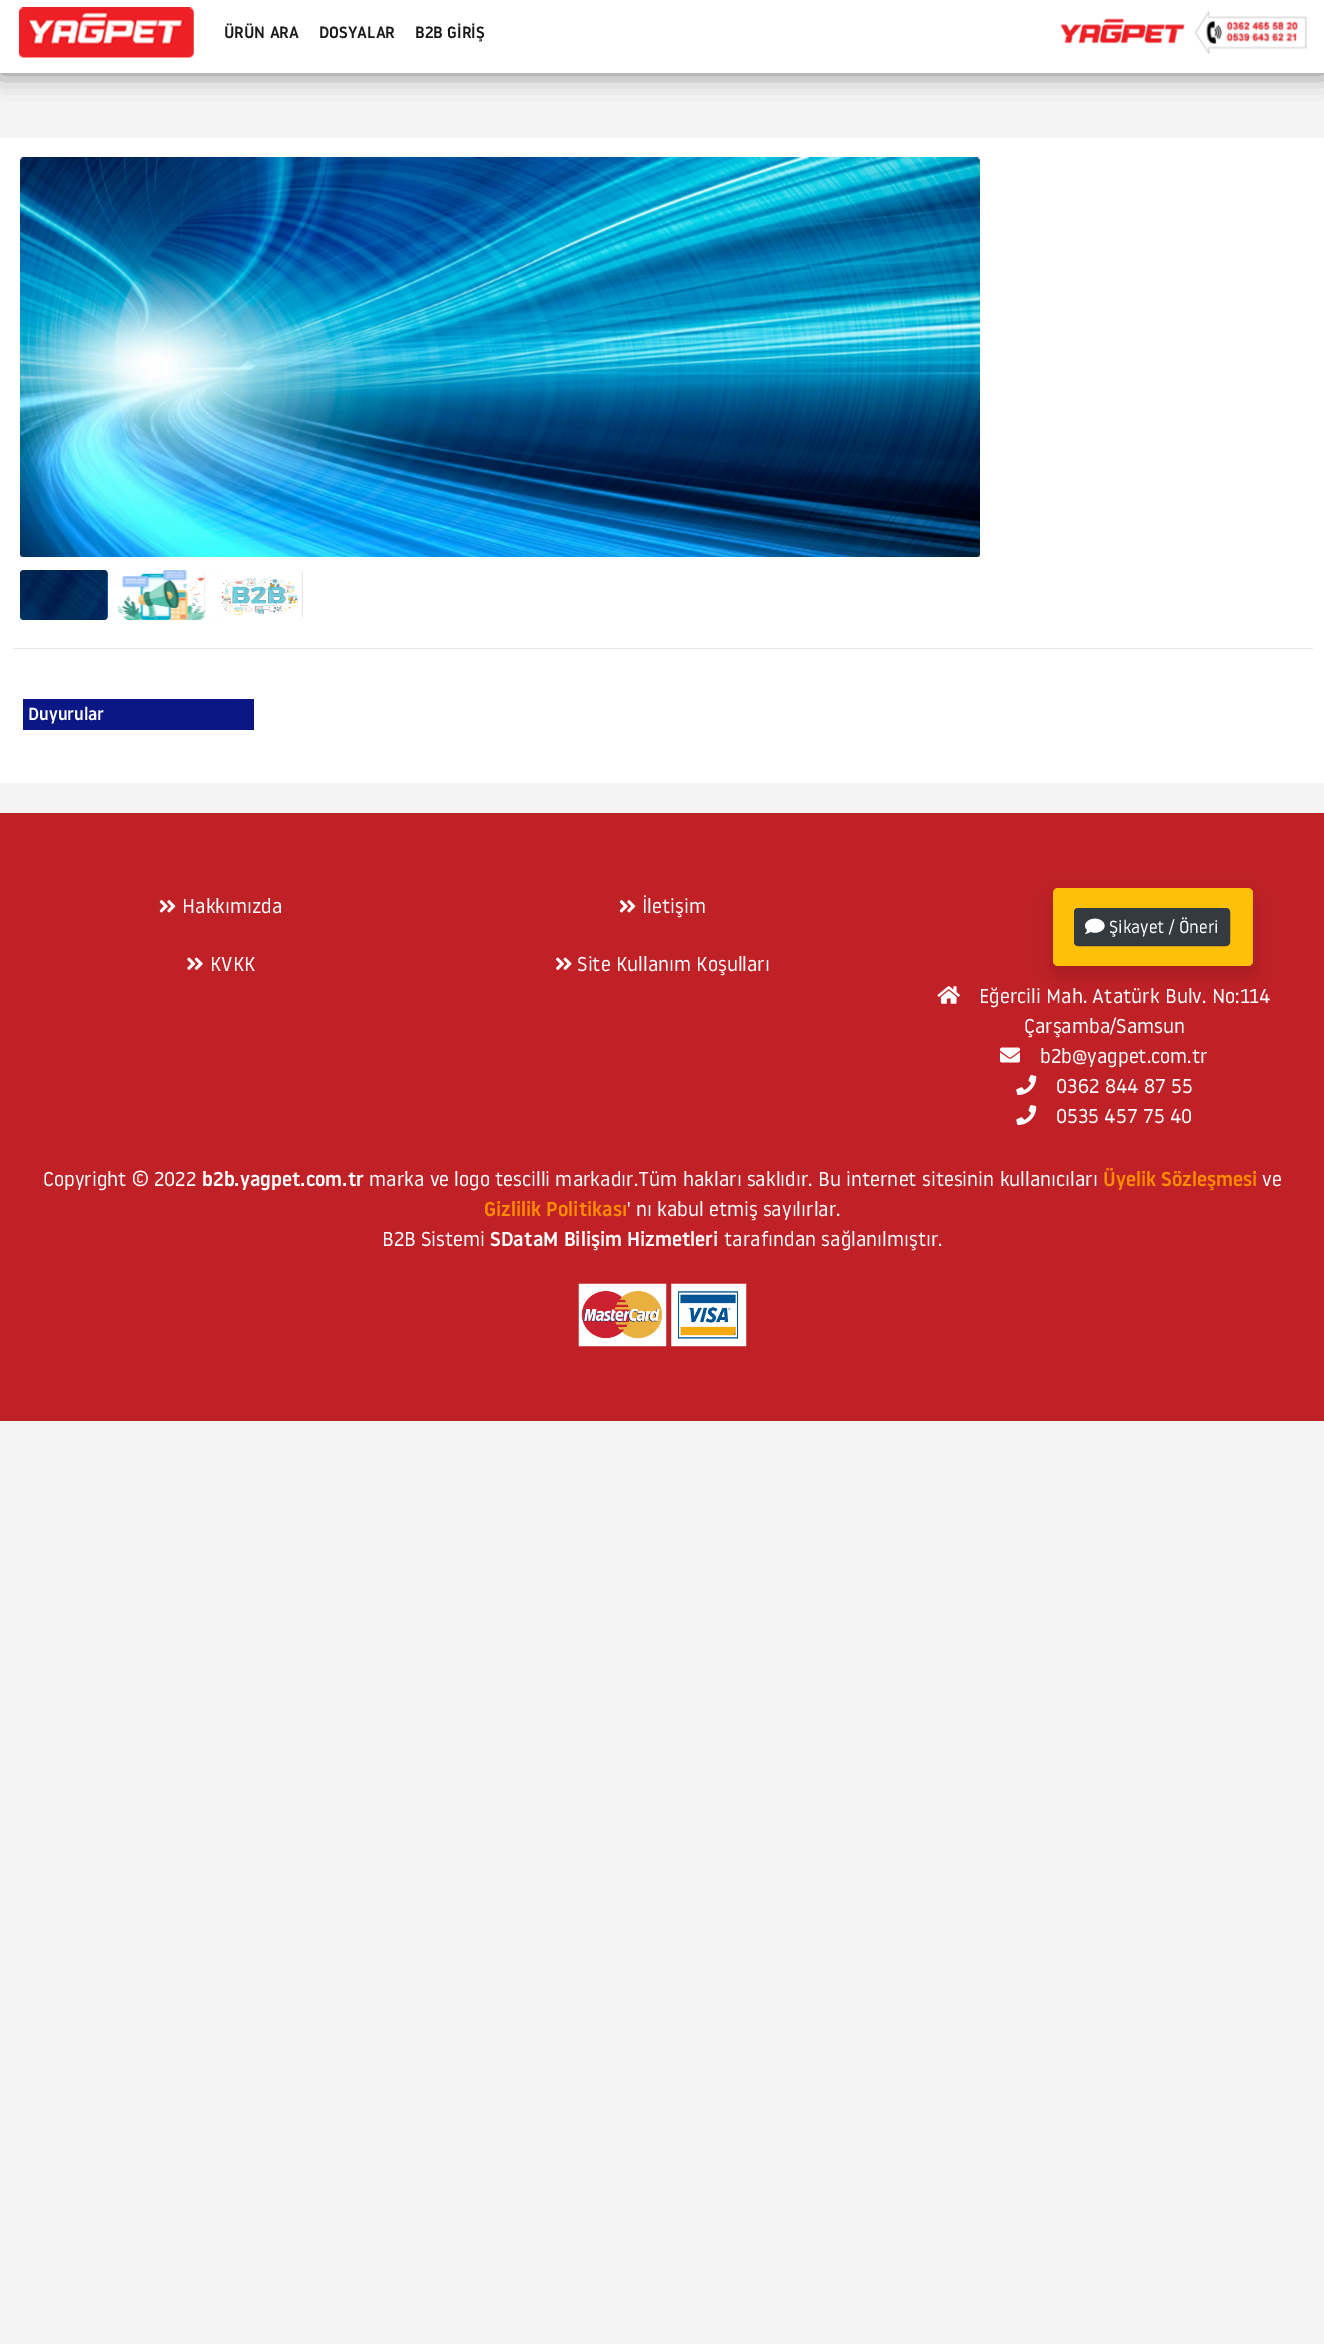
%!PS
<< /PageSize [1324 2344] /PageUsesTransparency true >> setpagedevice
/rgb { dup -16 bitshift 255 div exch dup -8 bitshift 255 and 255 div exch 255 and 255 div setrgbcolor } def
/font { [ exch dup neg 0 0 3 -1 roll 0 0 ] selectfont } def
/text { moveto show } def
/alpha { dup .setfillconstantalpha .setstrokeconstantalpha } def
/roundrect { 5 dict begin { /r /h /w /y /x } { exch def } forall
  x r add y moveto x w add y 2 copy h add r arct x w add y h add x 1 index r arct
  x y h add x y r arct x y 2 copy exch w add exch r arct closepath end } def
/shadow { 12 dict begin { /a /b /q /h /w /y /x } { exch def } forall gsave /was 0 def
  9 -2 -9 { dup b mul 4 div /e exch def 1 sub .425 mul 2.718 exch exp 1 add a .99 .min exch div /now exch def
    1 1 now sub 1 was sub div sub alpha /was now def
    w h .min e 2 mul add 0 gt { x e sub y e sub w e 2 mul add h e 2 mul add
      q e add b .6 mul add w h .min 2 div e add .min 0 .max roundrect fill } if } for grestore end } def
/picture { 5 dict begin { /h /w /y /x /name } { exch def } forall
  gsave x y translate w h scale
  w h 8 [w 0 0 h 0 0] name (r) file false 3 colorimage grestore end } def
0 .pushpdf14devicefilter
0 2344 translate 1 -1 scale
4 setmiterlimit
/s1 { /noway-Medium 16.25 font 16#191919 rgb } def
/s2 { /noway-Medium 17.5 font 16#FFFFFF rgb } def
/s3 { /noway-Regular 20 font 16#FFFFFF rgb } def
/s4 { /noway-Regular 17.5 font 16#FFFFFF rgb } def
/s5 { /noway-Medium 20 font 16#FFFFFF rgb } def
/s6 { /noway-Medium 20 font 16#FF8C00 rgb } def
16#F4F4F4 rgb
0 0 1324 2344 rectfill
gsave
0 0 moveto 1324 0 lineto 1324 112 lineto 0 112 lineto closepath 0 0 moveto 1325 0 lineto 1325 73 lineto 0 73 lineto closepath eoclip newpath
16#000000 rgb
0 0 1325 73 0 12.5 0.5 shadow
grestore
0.96 alpha
16#FFFFFF rgb
0 0 1324 73 rectfill
1 alpha
(pic1.raw) 19 7 175 51 picture
s1
(ÜRÜN ARA) 224 38 text
(DOSYALAR) 319 38 text
(B2B GİRİŞ) 415 38 text
(pic2.raw) 1060 18 125 26 picture
(pic3.raw) 1194 11 113 43 picture
16#FFFFFF rgb
0 138 1324 645 rectfill
(pic4.raw) 20 157 960 400 picture
16#0C83E7 rgb
20 570 88 50 4 roundrect fill
(pic5.raw) 20 570 88 50 picture
(pic6.raw) 117 570 89 50 picture
16#C9C9C9 rgb
215 570 88 50 4 roundrect fill
(pic7.raw) 215 570 88 50 picture
16#E6E6E6 rgb
13 648 1300 1 rectfill
16#0B1785 rgb
23 699 231 31 rectfill
s2
(Duyurular) 28 720 text
16#BF2126 rgb
0 813 1324 608 rectfill
(pic8.raw) 159 900 17 13 picture
s3
(Hakkımızda) 182 913 text
(pic9.raw) 187 957 16 13 picture
(KVKK) 210 971 text
(pic8.raw) 619 900 17 13 picture
(İletişim) 642 913 text
(pic10.raw) 556 957 16 13 picture
(Site Kullanım Koşulları) 577 971 text
16#000000 rgb
1053 898 200 78 5 10 0.15 shadow
16#FFC107 rgb
1053 888 200 78 5 roundrect fill
16#343A40 rgb
1074.5 908.5 155 37 3.5 roundrect gsave fill grestore
stroke
(pic11.raw) 1085 918 20 16 picture
s4
(Şikayet / Öneri) 1109 933 text
(pic12.raw) 937 986 23 18 picture
s3
(Eğercili Mah. Atatürk Bulv. No:114) 979 1003 text
(Çarşamba/Samsun) 1024 1033 text
(pic13.raw) 1000 1047 20 16 picture
(b2b@yagpet.com.tr) 1040 1063 text
(pic14.raw) 1016 1075 21 20 picture
(0362 844 87 55) 1056 1093 text
(pic14.raw) 1016 1105 21 20 picture
(0535 457 75 40) 1056 1123 text
(Copyright © 2022) 43 1186 text
s5
(b2b.yagpet.com.tr) 202 1186 text
s3
(marka ve logo tescilli markadır.Tüm hakları saklıdır. Bu internet sitesinin kullanıcıları) 369 1186 text
s6
(Üyelik Sözleşmesi) 1103 1186 text
s3
(ve) 1262 1186 text
s6
(Gizlilik Politikası) 484 1216 text
s3
(' nı kabul etmiş sayılırlar.) 627 1216 text
(B2B Sistemi) 382 1246 text
s5
(SDataM Bilişim Hizmetleri) 490 1246 text
s3
(tarafından sağlanılmıştır.) 724 1246 text
(pic15.raw) 578 1283 89 64 picture
(pic16.raw) 671 1283 76 64 picture
.poppdf14devicefilter showpage
